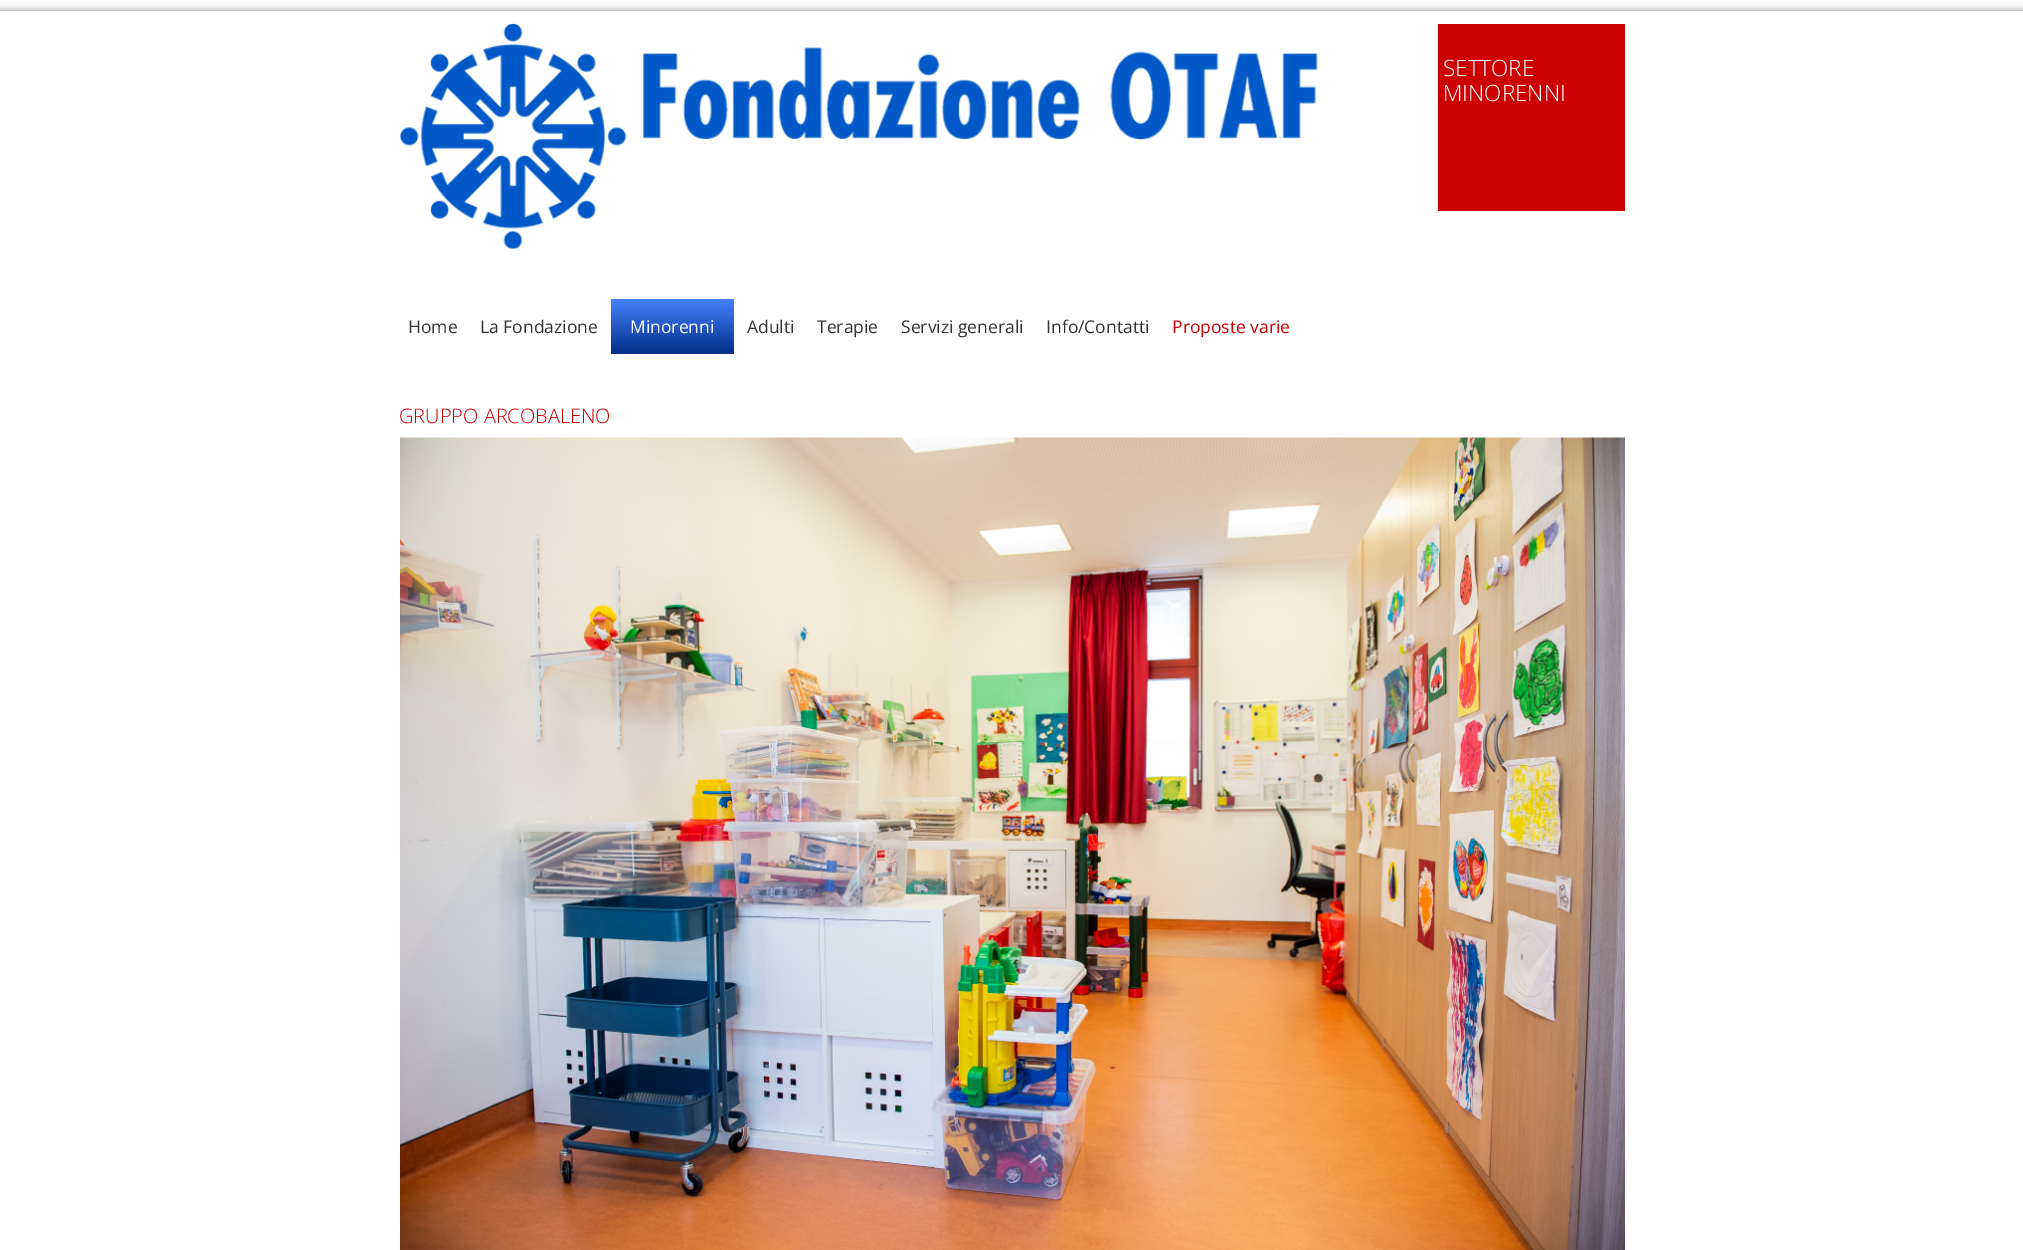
%!PS
<< /PageSize [2023 1250] /PageUsesTransparency true >> setpagedevice
/rgb { dup -16 bitshift 255 div exch dup -8 bitshift 255 and 255 div exch 255 and 255 div setrgbcolor } def
/font { [ exch dup neg 0 0 3 -1 roll 0 0 ] selectfont } def
/text { moveto show } def
/alpha { dup .setfillconstantalpha .setstrokeconstantalpha } def
/roundrect { 5 dict begin { /r /h /w /y /x } { exch def } forall
  x r add y moveto x w add y 2 copy h add r arct x w add y h add x 1 index r arct
  x y h add x y r arct x y 2 copy exch w add exch r arct closepath end } def
/shadow { 12 dict begin { /a /b /q /h /w /y /x } { exch def } forall gsave /was 0 def
  9 -2 -9 { dup b mul 4 div /e exch def 1 sub .425 mul 2.718 exch exp 1 add a .99 .min exch div /now exch def
    1 1 now sub 1 was sub div sub alpha /was now def
    w h .min e 2 mul add 0 gt { x e sub y e sub w e 2 mul add h e 2 mul add
      q e add b .6 mul add w h .min 2 div e add .min 0 .max roundrect fill } if } for grestore end } def
/picture { 5 dict begin { /h /w /y /x /name } { exch def } forall
  gsave x y translate w h scale
  w h 8 [w 0 0 h 0 0] name (r) file false 3 colorimage grestore end } def
0 .pushpdf14devicefilter
0 1250 translate 1 -1 scale
4 setmiterlimit
/s1 { /OpenSans-Light 22.5 font 16#FFFFFF rgb } def
/s2 { /OpenSans-Regular 17.5 font 16#333333 rgb } def
/s3 { /OpenSans-Regular 17.5 font 16#FFFFFF rgb } def
/s4 { /OpenSans-Regular 17.5 font 16#CC0000 rgb } def
/s5 { /OpenSans-Light 20 font 16#CC0000 rgb } def
16#FFFFFF rgb
0 0 2023 1250 rectfill
16#000000 rgb
0 11 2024 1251 0 4 0.47 shadow
16#FFFFFF rgb
0 11 2023 1239 rectfill
(pic1.raw) 400 23 918 226 picture
16#CC0000 rgb
1438 24 187 187 rectfill
s1
(SETTORE) 1443 76 text
(MINORENNI) 1443 101 text
s2
(Home) 408 333 text
(La Fondazione) 480 333 text
gsave 611 299 moveto 734 299 lineto 734 354 lineto 611 354 lineto closepath clip newpath
<< /ShadingType 2 /ColorSpace /DeviceRGB /Coords [673 299 673 354] /Extend [true true] /Function << /FunctionType 2 /Domain [0 1] /C0 [0.275 0.514 1] /C1 [0 0.176 0.533] /N 1 >> >> shfill grestore
s3
(Minorenni) 630 333 text
s2
(Adulti) 747 333 text
(Terapie) 817 333 text
(Servizi generali) 901 333 text
(Info/Contatti) 1046 333 text
s4
(Proposte varie) 1172 333 text
s5
(GRUPPO ARCOBALENO) 399 423 text
(pic2.raw) 400 437 1225 813 picture
.poppdf14devicefilter showpage
